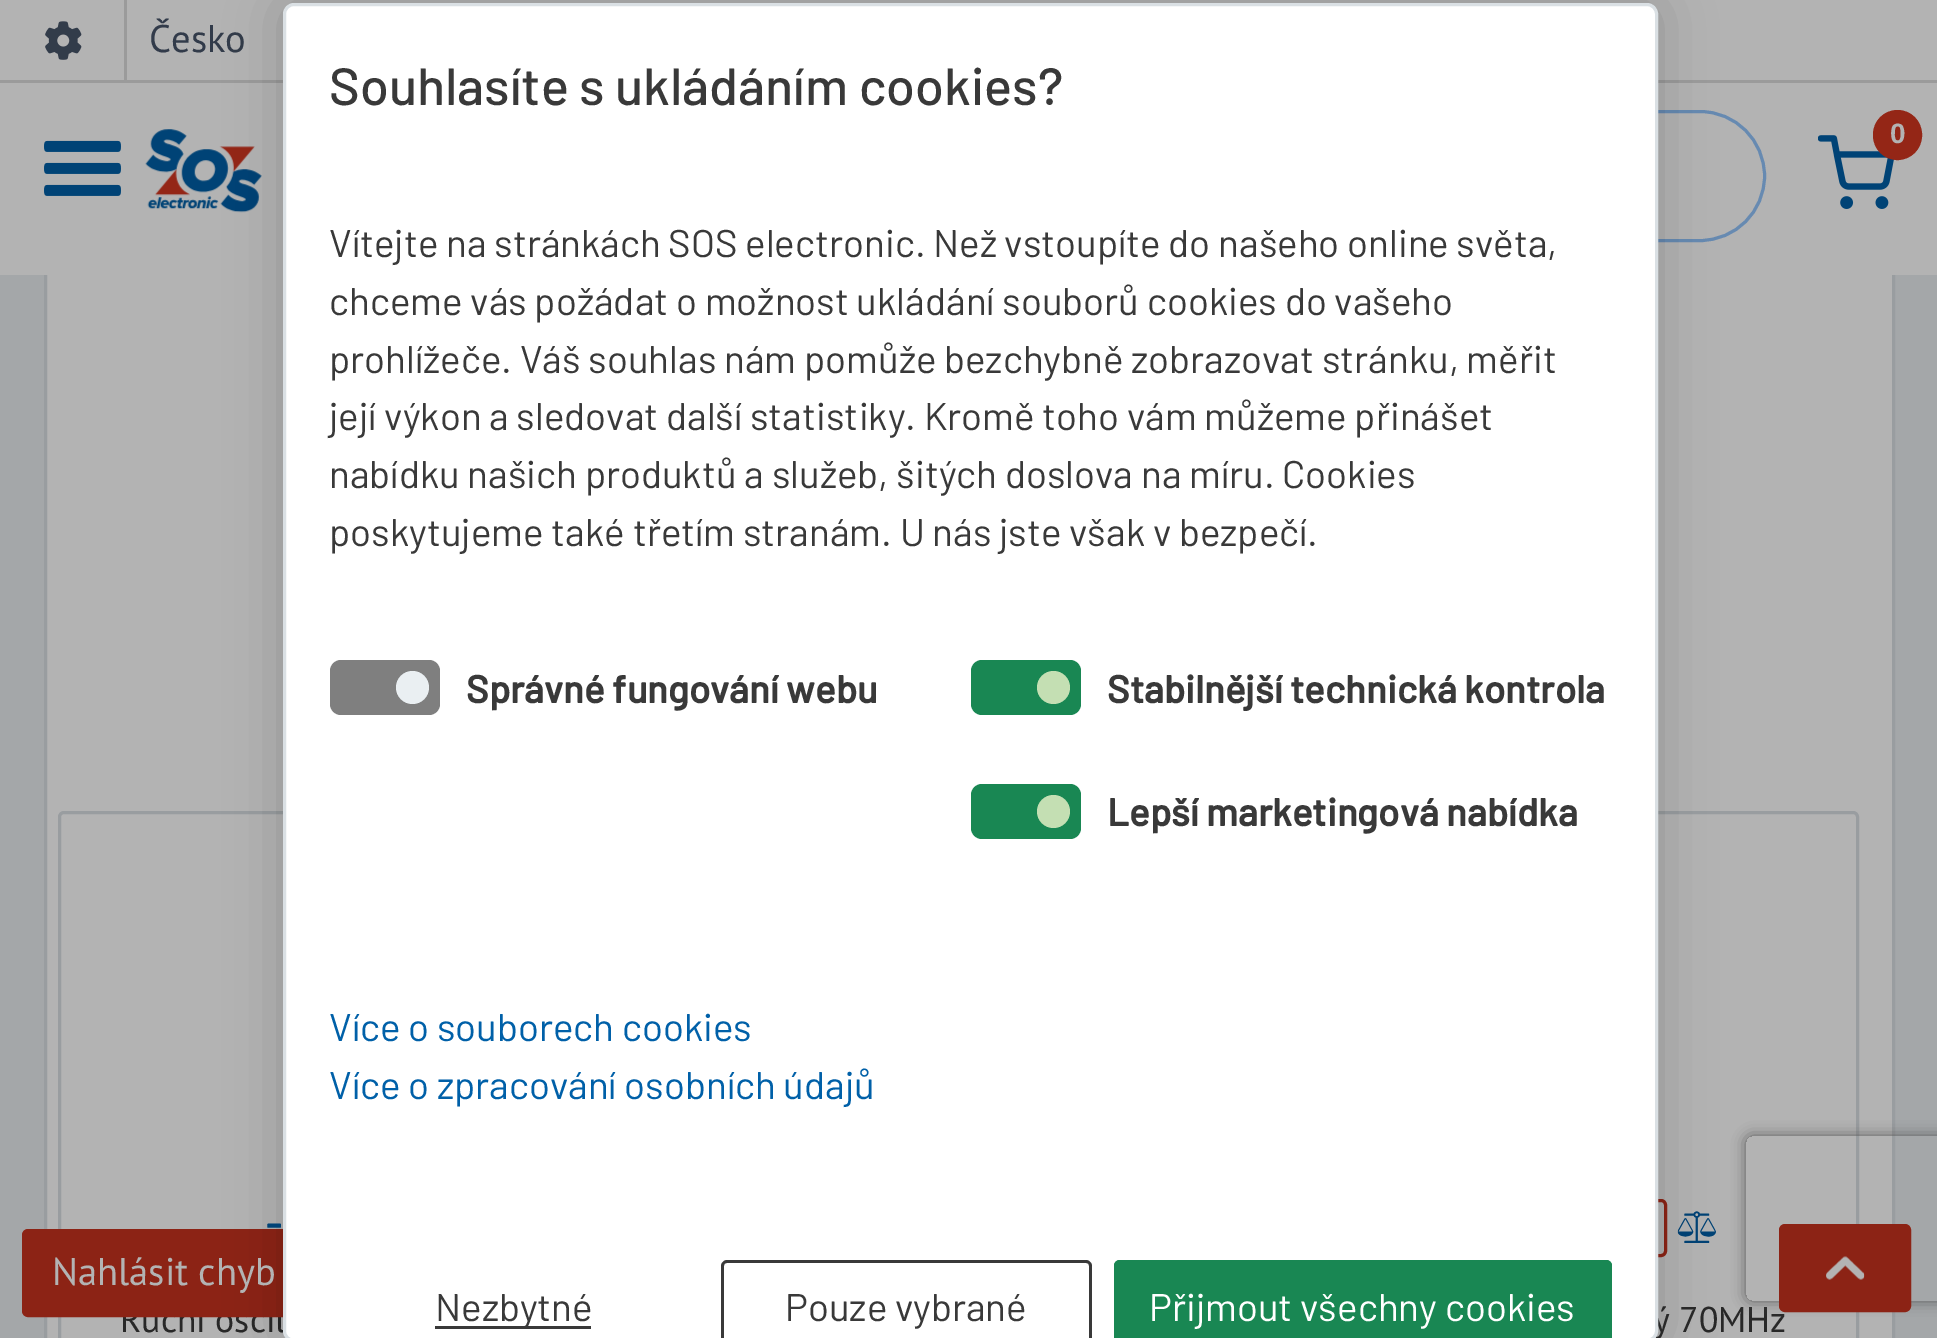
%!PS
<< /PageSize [1937 1338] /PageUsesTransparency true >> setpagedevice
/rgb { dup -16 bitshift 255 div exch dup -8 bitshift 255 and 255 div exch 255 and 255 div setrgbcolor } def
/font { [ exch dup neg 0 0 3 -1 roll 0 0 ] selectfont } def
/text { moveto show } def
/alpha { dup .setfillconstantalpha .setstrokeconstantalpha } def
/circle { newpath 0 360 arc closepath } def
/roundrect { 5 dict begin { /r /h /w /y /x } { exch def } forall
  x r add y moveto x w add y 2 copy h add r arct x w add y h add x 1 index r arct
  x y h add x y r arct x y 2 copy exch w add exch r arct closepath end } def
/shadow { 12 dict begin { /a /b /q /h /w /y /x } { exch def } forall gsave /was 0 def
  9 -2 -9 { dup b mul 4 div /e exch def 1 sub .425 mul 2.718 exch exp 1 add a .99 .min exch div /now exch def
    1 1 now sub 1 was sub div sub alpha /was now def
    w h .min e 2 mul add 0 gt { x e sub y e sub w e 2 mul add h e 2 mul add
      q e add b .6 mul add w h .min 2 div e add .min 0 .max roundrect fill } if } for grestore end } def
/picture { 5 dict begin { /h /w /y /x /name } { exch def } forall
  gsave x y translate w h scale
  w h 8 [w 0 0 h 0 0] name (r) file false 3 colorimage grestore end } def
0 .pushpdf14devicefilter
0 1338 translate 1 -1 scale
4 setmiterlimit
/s1 { /PTSans-Regular 38.5 font 16#323B4A rgb } def
/s2 { /LiberationSans-Bold 28 font 16#B3B3B3 rgb } def
/s3 { /PTSans-Regular 35.75 font 16#282828 rgb } def
/s4 { /Barlow-Medium 52.25 font 16#393939 rgb } def
/s5 { /Barlow-Regular 38.5 font 16#393939 rgb } def
/s6 { /Barlow-Bold 38.5 font 16#393939 rgb } def
/s7 { /Barlow-Regular 38.5 font 16#0060A8 rgb } def
/s8 { /Barlow-Regular 38.5 font 16#FFFFFF rgb } def
/s9 { /Barlow-Bold 38.5 font 16#004376 rgb } def
/s10 { /PTSans-Regular 38.5 font 16#B3B3B3 rgb } def
16#A4A7A9 rgb
0 0 1937 1338 rectfill
16#B3B3B3 rgb
47 275 1845 1063 rectfill
16#999DA0 rgb
3 setlinewidth
45.5 40.5 1848 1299 rectstroke
16#B3B3B3 rgb
0 0 1937 275 rectfill
16#9B9B9B rgb
0 80 1937 3 rectfill
124 0 3 80 rectfill
(pic1.raw) 45 21 37 39 picture
s1
(Česko) 149 52 text
(pic2.raw) 44 140 77 56 picture
(pic3.raw) 145 129 117 84 picture
16#678AB1 rgb
328.5 111.5 1436 129 64.5 roundrect stroke
(pic4.raw) 1818 135 76 74 picture
16#942616 rgb
1876 113 43 44 21.5 roundrect gsave fill grestore
6 setlinewidth
stroke
s2
(0) 1890 143 text
16#999DA0 rgb
3 setlinewidth
59.5 812.5 888 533 4.5 roundrect stroke
972.5 812.5 885 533 4.5 roundrect stroke
16#8C2315 rgb
1571.5 1200.5 94 55 4.5 roundrect stroke
(pic5.raw) 1677 1211 39 32 picture
s3
(Ruční oscil) 120 1332 text
16#8C2315 rgb
23.5 1230.5 302 85 4.5 roundrect gsave fill grestore
stroke
gsave
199 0 moveto 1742 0 lineto 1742 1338 lineto 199 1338 lineto closepath 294 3 moveto 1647 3 lineto 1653 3 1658 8 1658 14 curveto 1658 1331 lineto 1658 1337 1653 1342 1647 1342 curveto 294 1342 lineto 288 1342 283 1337 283 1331 curveto 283 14 lineto 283 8 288 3 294 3 curveto closepath eoclip newpath
16#000000 rgb
283 3 1375 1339 11 27.5 0.2 shadow
grestore
s3
(ý 70MHz) 1653 1332 text
16#FFFFFF rgb
284.5 4.5 1372 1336 9.5 roundrect gsave fill grestore
16#DAE0E4 rgb
stroke
s4
(Souhlasíte s ukládáním cookies?) 329 105 text
s5
(Vítejte na stránkách SOS electronic. Než vstoupíte do našeho online světa,) 329 257 text
(chceme vás požádat o možnost ukládání souborů cookies do vašeho) 329 315 text
(prohlížeče. Váš souhlas nám pomůže bezchybně zobrazovat stránku, měřit) 329 373 text
(její výkon a sledovat další statistiky. Kromě toho vám můžeme přinášet) 329 430 text
(nabídku našich produktů a služeb, šitých doslova na míru. Cookies) 329 488 text
(poskytujeme také třetím stranám. U nás jste však v bezpečí.) 329 546 text
16#7F7F7F rgb
330 660 110 55 11 roundrect fill
16#EAEFF2 rgb
412.5 687.5 16.5 circle fill
s6
(Správné fungování webu) 466 703 text
16#198753 rgb
971 660 110 55 11 roundrect fill
16#C4DFB3 rgb
1053.5 687.5 16.5 circle fill
s6
(Stabilnější technická kontrola) 1107 703 text
16#198753 rgb
971 784 110 55 11 roundrect fill
16#C4DFB3 rgb
1053.5 811.5 16.5 circle fill
s6
(Lepší marketingová nabídka) 1107 826 text
s7
(Více o souborech cookies) 329 1041 text
(Více o zpracování osobních údajů) 329 1099 text
16#393939 rgb
435 1326 156 3 rectfill
(Nezbytné) 435 1321 text
727 1260 moveto 724 1260 721 1263 721 1266 curveto 721 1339 lineto 724 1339 lineto 724 1266 lineto 724 1264 725 1263 727 1263 curveto 1086 1263 lineto 1088 1263 1089 1264 1089 1266 curveto 1089 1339 lineto 1092 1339 lineto 1092 1266 lineto 1092 1263 1089 1260 1086 1260 curveto closepath fill
(Pouze vybrané) 785 1321 text
16#198753 rgb
1120 1260 moveto 1606 1260 lineto 1609.5 1260 1612 1262.5 1612 1266 curveto 1612 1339 lineto 1114 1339 lineto 1114 1266 lineto 1114 1262.5 1116.5 1260 1120 1260 curveto closepath fill
1120 1260 moveto 1117 1260 1114 1263 1114 1266 curveto 1114 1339 lineto 1117 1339 lineto 1117 1266 lineto 1117 1264 1118 1263 1120 1263 curveto 1606 1263 lineto 1608 1263 1609 1264 1609 1266 curveto 1609 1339 lineto 1612 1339 lineto 1612 1266 lineto 1612 1263 1609 1260 1606 1260 curveto closepath fill
s8
(Přijmout všechny cookies) 1149 1321 text
gsave
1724 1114 moveto 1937 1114 lineto 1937 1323 lineto 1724 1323 lineto closepath 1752 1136 moveto 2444 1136 lineto 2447.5 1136 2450 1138.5 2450 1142 curveto 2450 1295 lineto 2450 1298.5 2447.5 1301 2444 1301 curveto 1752 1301 lineto 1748.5 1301 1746 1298.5 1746 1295 curveto 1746 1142 lineto 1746 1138.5 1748.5 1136 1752 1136 curveto closepath eoclip newpath
16#5A5A5A rgb
1746 1136 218 165 6 7 1 shadow
grestore
s9
(-) 266 1238 text
16#8C2315 rgb
1780.5 1225.5 129 85 4.5 roundrect gsave fill grestore
stroke
(pic6.raw) 1826 1256 39 24 picture
s10
(Nahlásit chyb) 52 1285 text
.poppdf14devicefilter showpage
